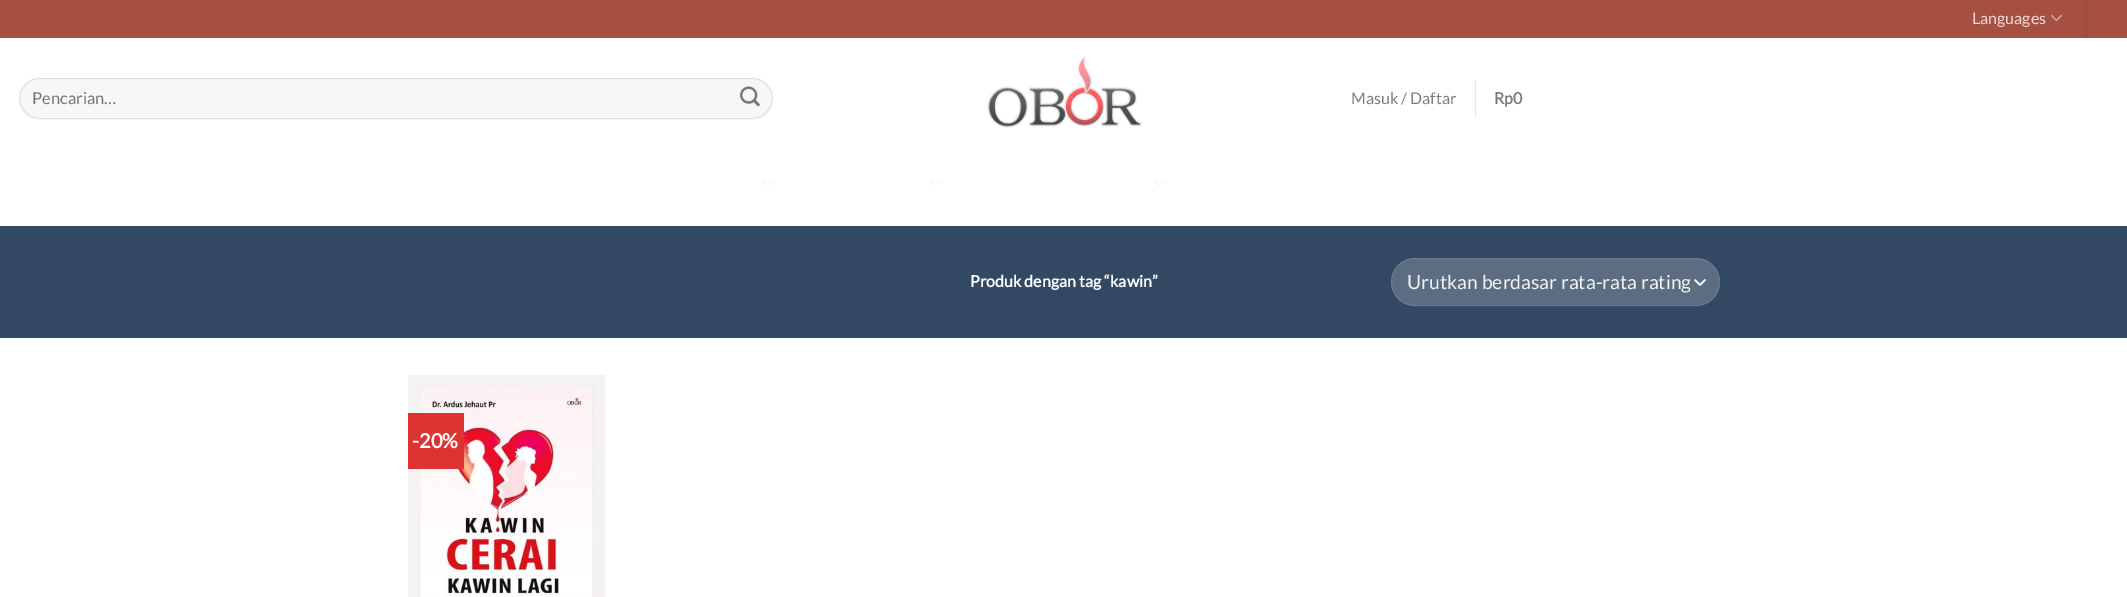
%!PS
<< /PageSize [2127 597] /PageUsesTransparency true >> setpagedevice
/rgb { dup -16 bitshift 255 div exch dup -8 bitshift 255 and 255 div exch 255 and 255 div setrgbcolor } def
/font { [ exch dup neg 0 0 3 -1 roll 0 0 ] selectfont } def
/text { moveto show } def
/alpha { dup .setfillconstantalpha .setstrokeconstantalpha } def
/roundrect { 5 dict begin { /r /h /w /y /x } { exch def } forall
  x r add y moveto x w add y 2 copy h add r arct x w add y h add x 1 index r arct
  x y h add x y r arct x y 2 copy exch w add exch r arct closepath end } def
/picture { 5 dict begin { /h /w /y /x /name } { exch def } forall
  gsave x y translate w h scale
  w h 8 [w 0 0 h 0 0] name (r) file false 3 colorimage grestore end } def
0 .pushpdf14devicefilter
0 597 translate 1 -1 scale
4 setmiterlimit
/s1 { /Lato-Regular 16 font 16#EDDCD9 rgb } def
/s2 { /Lato-Regular 16.5 font 16#757575 rgb } def
/s3 { /Lato-Regular 16 font 16#7D7D7D rgb } def
/s4 { /Lato-Bold 16 font 16#7D7D7D rgb } def
/s5 { /Lato-Bold 16 font 16#FFFFFF rgb } def
/s6 { /Lato-Regular 19.4 font 16#F1F1F1 rgb } def
/s7 { /Lato-Bold 20 font 16#FFFFFF rgb } def
16#FFFFFF rgb
0 0 2127 597 rectfill
16#A65042 rgb
0 0 2127 38 rectfill
s1
(Languages) 1972 24 text
(pic1.raw) 2051 14 11 8 picture
16#95483B rgb
2086 0 1 38 rectfill
16#F7F7F7 rgb
19 78 754 41 20.5 roundrect fill
0.09 alpha
16#000000 rgb
19.5 78.5 753 40 20 roundrect stroke
1 alpha
s2
(Pencarian…) 32 104 text
(pic2.raw) 740 86 20 21 picture
(pic3.raw) 987 55 155 73 picture
s3
(Masuk / Daftar) 1351 104 text
16#E6E6E6 rgb
1475 80 1 38 rectfill
s4
(Rp0) 1494 104 text
(pic4.raw) 762 179 12 8 picture
(pic5.raw) 929 179 12 8 picture
(pic6.raw) 1153 179 12 8 picture
16#334863 rgb
0 226 2127 112 rectfill
s5
(Produk dengan tag “kawin”) 970 287 text
16#5C6D82 rgb
1391 258 329 48 24 roundrect fill
16#FFFFFF rgb
1.7 setlinewidth
1 setlinecap
1 setlinejoin
1695 280 moveto 1700 285 lineto 1705 280 lineto stroke
0.09 alpha
1 setlinewidth
0 setlinecap
0 setlinejoin
1391.5 258.5 328 47 23.5 roundrect stroke
1 alpha
s6
(Urutkan berdasar rata-rata rating) 1407 289 text
(pic7.raw) 408 375 197 222 picture
16#DD3333 rgb
408 413 56 56 rectfill
s7
(-20%) 412 448 text
.poppdf14devicefilter showpage
